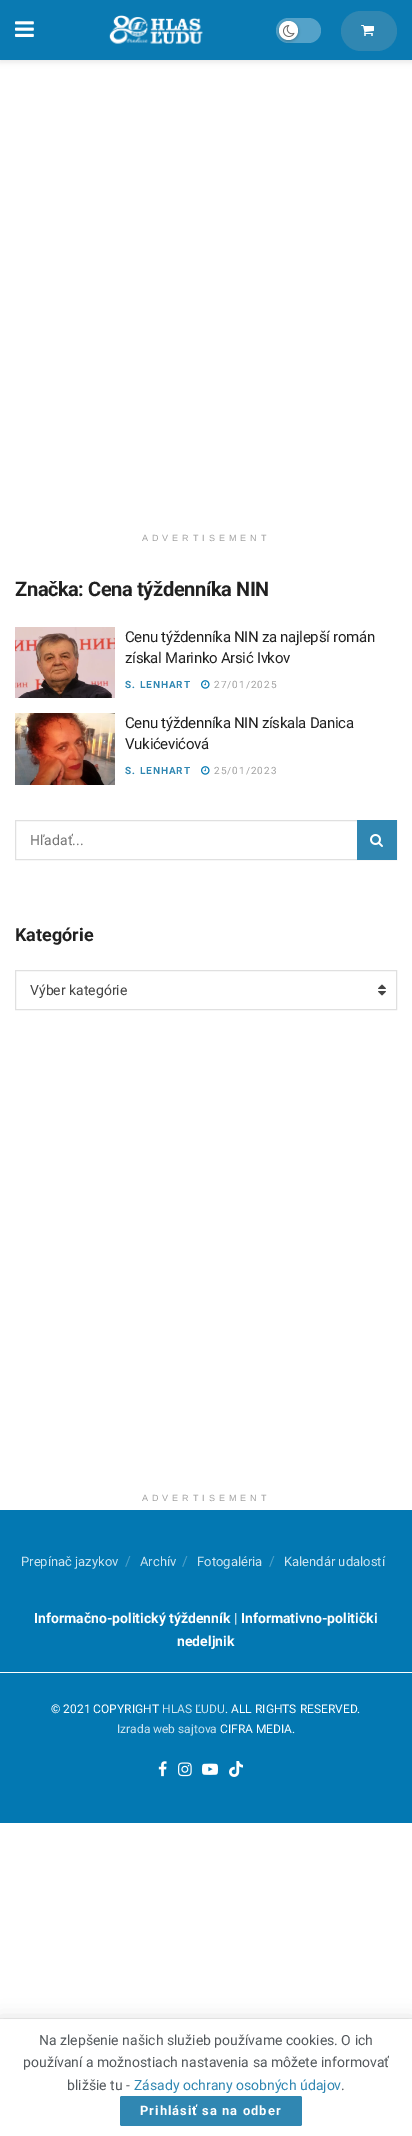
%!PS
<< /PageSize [412 2136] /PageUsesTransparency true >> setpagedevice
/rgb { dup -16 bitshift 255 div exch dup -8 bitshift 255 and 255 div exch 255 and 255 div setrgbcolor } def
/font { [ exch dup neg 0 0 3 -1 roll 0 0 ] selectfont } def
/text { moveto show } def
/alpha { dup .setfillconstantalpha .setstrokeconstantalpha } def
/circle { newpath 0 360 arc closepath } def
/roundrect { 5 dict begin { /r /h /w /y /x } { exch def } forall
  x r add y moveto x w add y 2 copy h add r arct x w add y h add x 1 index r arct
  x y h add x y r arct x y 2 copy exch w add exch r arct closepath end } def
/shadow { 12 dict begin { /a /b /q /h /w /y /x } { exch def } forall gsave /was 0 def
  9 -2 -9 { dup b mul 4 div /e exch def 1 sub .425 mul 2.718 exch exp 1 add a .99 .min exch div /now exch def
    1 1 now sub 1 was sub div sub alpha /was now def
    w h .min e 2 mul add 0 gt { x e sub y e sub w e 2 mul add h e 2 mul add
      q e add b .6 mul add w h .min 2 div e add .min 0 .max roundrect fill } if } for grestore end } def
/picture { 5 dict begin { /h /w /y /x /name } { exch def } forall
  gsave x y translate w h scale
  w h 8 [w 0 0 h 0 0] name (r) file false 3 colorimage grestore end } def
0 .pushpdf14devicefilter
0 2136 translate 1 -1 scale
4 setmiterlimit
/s1 { /Roboto-Regular 14 font 16#757575 rgb } def
/s2 { /Roboto-Bold 18 font 16#212121 rgb } def
/s3 { /Roboto-Regular 14 font 16#444444 rgb } def
/s4 { /Roboto-Regular 13 font 16#CDE4F0 rgb } def
/s5 { /Roboto-Regular 14 font 16#4FA1C9 rgb } def
/s6 { /Roboto-Bold 14 font 16#FFFFFF rgb } def
/s7 { /Roboto-Regular 12 font 16#FFFFFF rgb } def
/s8 { /Roboto-Regular 12 font 16#CDE4F0 rgb } def
/s9 { /Roboto-Regular 14 font 16#53585C rgb } def
/s10 { /Roboto-Regular 14 font 16#3087B2 rgb } def
16#FFFFFF rgb
0 0 412 2136 rectfill
16#000000 rgb
0 2 412 60 0 3 0.1 shadow
16#0A7AB2 rgb
0 0 412 60 rectfill
(pic1.raw) 15 21 19 16 picture
(pic2.raw) 109 15 94 29 picture
16#54A2C9 rgb
276 18 45 25 12.5 roundrect fill
16#000000 rgb
279 22 19 19 9.5 1.5 0.3 shadow
16#FFFFFF rgb
288.5 30.5 9.5 circle fill
(pic3.raw) 283 25 12 12 picture
16#3087B2 rgb
341 11 56 40 20 roundrect fill
(pic4.raw) 361 25 13 11 picture
/LiberationSans-Regular 9 font
16#A0A0A0 rgb
142 541 moveto 4 0 (ADVERTISEMENT) ashow
/Roboto-Bold 20 font
16#212121 rgb
15 596 moveto -0.4 0 (Značka: Cena týždenníka NIN) ashow
(pic5.raw) 15 627 100 71 picture
/Roboto-Regular 15 font
125 642 moveto -0.3 0 (Cenu týždenníka NIN za najlepší román) ashow
125 663 moveto -0.3 0 (získal Marinko Arsić Ivkov) ashow
/Roboto-Bold 10 font
16#3087B2 rgb
125 688 moveto 1 0 (S. LENHART) ashow
(pic6.raw) 201 680 9 9 picture
/Roboto-Regular 10 font
16#A0A0A0 rgb
214 688 moveto 1 0 (27/01/2025) ashow
(pic7.raw) 15 713 100 72 picture
/Roboto-Regular 15 font
16#212121 rgb
125 728 moveto -0.3 0 (Cenu týždenníka NIN získala Danica) ashow
125 749 moveto -0.3 0 (Vukićevićová) ashow
/Roboto-Bold 10 font
16#3087B2 rgb
125 774 moveto 1 0 (S. LENHART) ashow
(pic6.raw) 201 766 9 9 picture
/Roboto-Regular 10 font
16#A0A0A0 rgb
214 774 moveto 1 0 (25/01/2023) ashow
16#E0E0E0 rgb
15.5 820.5 381 39 rectstroke
s1
(Hľadať...) 30 845 text
16#3087B2 rgb
357 820 40 40 rectfill
(pic8.raw) 370 834 13 13 picture
s2
(Kategórie) 15 941 text
16#E0E0E0 rgb
15.5 970.5 381 39 rectstroke
s3
(Výber kategórie) 30 995 text
(pic9.raw) 378 984 8 12 picture
/LiberationSans-Regular 9 font
16#A0A0A0 rgb
142 1501 moveto 4 0 (ADVERTISEMENT) ashow
16#0378B2 rgb
0 1510 412 313 rectfill
s4
(Prepínač jazykov) 21 1566 text
s5
(/) 125 1566 text
s4
(Archív) 140 1566 text
s5
(/) 182 1566 text
s4
(Fotogaléria) 197 1566 text
s5
(/) 269 1566 text
s4
(Kalendár udalostí) 284 1566 text
s6
(Informačno-politický týždenník | Informativno-politički) 34 1623 text
(nedeljnik) 177 1646 text
0 1672 412 1 rectfill
s7
(© 2021 COPYRIGHT) 51 1713 text
s8
(HLAS ĽUDU) 162 1713 text
s7
(. ALL RIGHTS RESERVED.) 225 1713 text
s8
(Izrada web sajtova) 117 1733 text
s7
(CIFRA MEDIA.) 220 1733 text
(pic10.raw) 158 1761 9 16 picture
(pic11.raw) 178 1762 14 15 picture
(pic12.raw) 202 1763 16 12 picture
(pic13.raw) 229 1761 14 16 picture
16#000000 rgb
0 2021 412 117 0 10 0.15 shadow
0 2019 412 117 0 0.5 0.2 shadow
16#FFFFFF rgb
0 2019 412 117 rectfill
s9
(Na zlepšenie našich služieb používame cookies. O ich) 39 2045 text
(používaní a možnostiach nastavenia sa môžete informovať) 23 2067 text
(bližšie tu -) 67 2090 text
s10
(Zásady ochrany osobných údajov) 134 2090 text
s9
(.) 341 2090 text
16#3087B2 rgb
120 2096 182 30 2 roundrect fill
/Roboto-Bold 13 font
16#FFFFFF rgb
140 2115 moveto 1 0 (Prihlásiť sa na odber) ashow
.poppdf14devicefilter showpage
